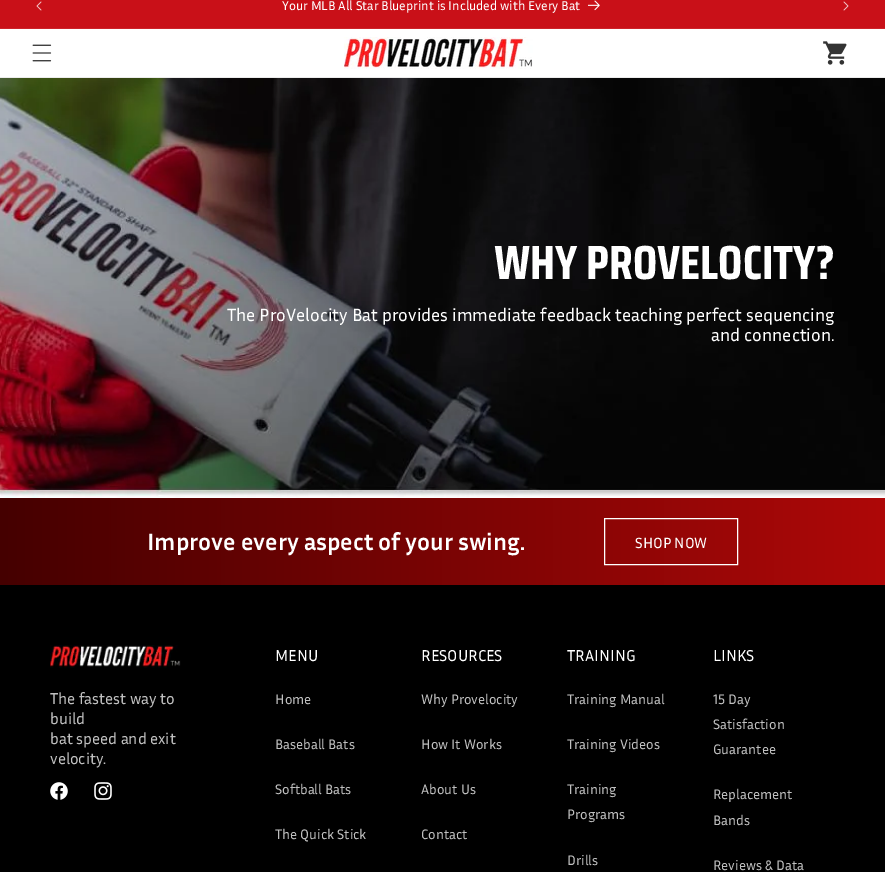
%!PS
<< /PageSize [885 872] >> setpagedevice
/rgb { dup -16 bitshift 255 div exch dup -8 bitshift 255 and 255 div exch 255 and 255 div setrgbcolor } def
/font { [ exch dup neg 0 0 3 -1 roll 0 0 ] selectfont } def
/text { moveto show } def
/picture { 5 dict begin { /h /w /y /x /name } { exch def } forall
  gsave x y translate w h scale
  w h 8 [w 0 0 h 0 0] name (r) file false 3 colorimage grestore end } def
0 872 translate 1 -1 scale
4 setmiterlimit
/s1 { /InriaSans-Regular 13 font 16#FFFFFF rgb } def
/s2 { /SairaCondensed-Bold 48 font 16#FFFFFF rgb } def
/s3 { /InriaSans-Regular 18 font 16#FFFFFF rgb } def
/s4 { /InriaSans-Bold 24 font 16#FFFFFF rgb } def
/s5 { /InriaSans-Regular 15 font 16#FFFFFF rgb } def
/s6 { /InriaSans-Regular 16 font 16#BFBFBF rgb } def
/s7 { /InriaSans-Regular 16 font 16#FFFFFF rgb } def
/s8 { /InriaSans-Regular 14 font 16#BFBFBF rgb } def
16#FFFFFF rgb
0 0 885 872 rectfill
16#C91018 rgb
0 0 885 28 rectfill
16#CD232A rgb
0 28 885 1 rectfill
(pic1.raw) 36 1 6 10 picture
s1
(Your MLB All Star Blueprint is Included with Every Bat) 282 10 text
(pic2.raw) 588 0 12 11 picture
(pic3.raw) 843 1 6 10 picture
16#ECECEC rgb
0 77 885 1 rectfill
(pic4.raw) 32 44 20 18 picture
(pic5.raw) 344 37 189 32 picture
(pic6.raw) 823 41 24 24 picture
(pic7.raw) 0 78 885 420 picture
s2
(WHY PROVELOCITY?) 494 279 text
s3
(The ProVelocity Bat provides immediate feedback teaching perfect sequencing) 227 321 text
(and connection.) 711 341 text
gsave 0 498 moveto 885 498 lineto 885 585 lineto 0 585 lineto closepath clip newpath
<< /ShadingType 2 /ColorSpace /DeviceRGB /Coords [0 542 885 542] /Extend [true true] /Function << /FunctionType 2 /Domain [0 1] /C0 [0.271 0 0] /C1 [0.682 0.031 0.031] /N 1 >> >> shfill grestore
s4
(Improve every aspect of your swing.) 147 550 text
604.5 518.5 133 46 rectstroke
s5
(SHOP NOW) 635 548 text
16#000000 rgb
0 585 885 287 rectfill
(pic8.raw) 50 645 131 23 picture
s6
(The fastest way to) 50 704 text
(build) 50 724 text
(bat speed and exit) 50 744 text
(velocity.) 50 764 text
(pic9.raw) 50 782 18 18 picture
(pic10.raw) 94 782 18 18 picture
s7
(MENU) 275 661 text
s8
(Home) 275 704 text
(Baseball Bats) 275 749 text
(Softball Bats) 275 794 text
(The Quick Stick) 275 839 text
s7
(RESOURCES) 421 661 text
s8
(Why Provelocity) 421 704 text
(How It Works) 421 749 text
(About Us) 421 794 text
(Contact) 421 839 text
s7
(TRAINING) 567 661 text
s8
(Training Manual) 567 704 text
(Training Videos) 567 749 text
(Training) 567 794 text
(Programs) 567 819 text
(Drills) 567 865 text
s7
(LINKS) 713 661 text
s8
(15 Day) 713 704 text
(Satisfaction) 713 729 text
(Guarantee) 713 754 text
(Replacement) 713 799 text
(Bands) 713 825 text
(Reviews & Data) 713 870 text
showpage
